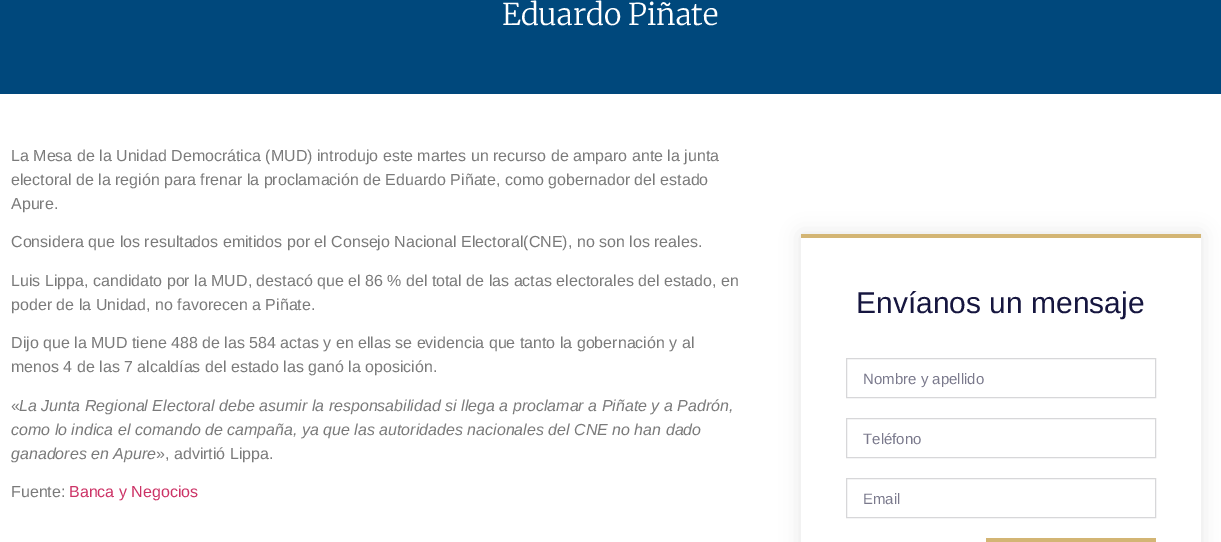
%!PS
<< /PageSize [1221 542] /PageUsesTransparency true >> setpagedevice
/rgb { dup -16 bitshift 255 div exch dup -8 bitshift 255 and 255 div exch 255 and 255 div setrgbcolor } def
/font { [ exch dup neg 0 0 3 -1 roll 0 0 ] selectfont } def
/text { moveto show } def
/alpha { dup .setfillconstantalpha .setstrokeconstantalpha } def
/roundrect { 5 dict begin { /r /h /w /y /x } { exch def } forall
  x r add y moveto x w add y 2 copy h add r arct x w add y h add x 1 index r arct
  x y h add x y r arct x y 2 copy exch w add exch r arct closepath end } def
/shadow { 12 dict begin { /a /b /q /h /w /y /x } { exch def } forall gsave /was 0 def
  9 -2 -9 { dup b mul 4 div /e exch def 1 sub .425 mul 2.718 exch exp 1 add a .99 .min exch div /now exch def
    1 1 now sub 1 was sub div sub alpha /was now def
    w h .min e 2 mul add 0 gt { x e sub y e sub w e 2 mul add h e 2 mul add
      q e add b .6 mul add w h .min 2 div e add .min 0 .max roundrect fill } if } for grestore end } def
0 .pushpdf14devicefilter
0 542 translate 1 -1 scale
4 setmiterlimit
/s1 { /Merriweather-Light 30 font 16#FFFFFF rgb } def
/s2 { /LiberationSans-Regular 16 font 16#7A7A7A rgb } def
/s3 { /LiberationSans-Italic 16 font 16#7A7A7A rgb } def
/s4 { /LiberationSans-Regular 16 font 16#CC3366 rgb } def
/s5 { /LiberationSans-Regular 30 font 16#16163F rgb } def
/s6 { /LiberationSans-Regular 15 font 16#7A798C rgb } def
16#FFFFFF rgb
0 0 1221 542 rectfill
16#00487C rgb
0 0 1221 94 rectfill
s1
(Eduardo Piñate) 502 25 text
s2
(La Mesa de la Unidad Democrática \(MUD\) introdujo este martes un recurso de amparo ante la junta) 11 161 text
(electoral de la región para frenar la proclamación de Eduardo Piñate, como gobernador del estado) 11 185 text
(Apure.) 11 209 text
(Considera que los resultados emitidos por el Consejo Nacional Electoral\(CNE\), no son los reales.) 11 247 text
(Luis Lippa, candidato por la MUD, destacó que el 86 % del total de las actas electorales del estado, en) 11 286 text
(poder de la Unidad, no favorecen a Piñate.) 11 310 text
(Dijo que la MUD tiene 488 de las 584 actas y en ellas se evidencia que tanto la gobernación y al) 11 348 text
(menos 4 de las 7 alcaldías del estado las ganó la oposición.) 11 372 text
(«) 11 411 text
s3
(La Junta Regional Electoral debe asumir la responsabilidad si llega a proclamar a Piñate y a Padrón,) 19 411 text
(como lo indica el comando de campaña, ya que las autoridades nacionales del CNE no han dado) 11 435 text
(ganadores en Apure) 11 459 text
s2
(», advirtió Lippa.) 156 459 text
(Fuente:) 11 497 text
s4
(Banca y Negocios) 69 497 text
gsave
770 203 moveto 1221 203 lineto 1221 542 lineto 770 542 lineto closepath 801 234 moveto 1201 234 lineto 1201 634 lineto 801 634 lineto closepath eoclip newpath
16#000000 rgb
801 234 400 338 0 10 0.1 shadow
grestore
16#D3B574 rgb
801 234 400 4 rectfill
s5
(Envíanos un mensaje) 856 313 text
16#D7D7D9 rgb
846.5 358.5 309 39 rectstroke
s6
(Nombre y apellido) 863 384 text
16#D7D7D9 rgb
846.5 418.5 309 39 rectstroke
s6
(Teléfono) 863 444 text
16#D7D7D9 rgb
846.5 478.5 309 39 rectstroke
s6
(Email) 863 504 text
16#D3B574 rgb
986 538 170 4 rectfill
.poppdf14devicefilter showpage
